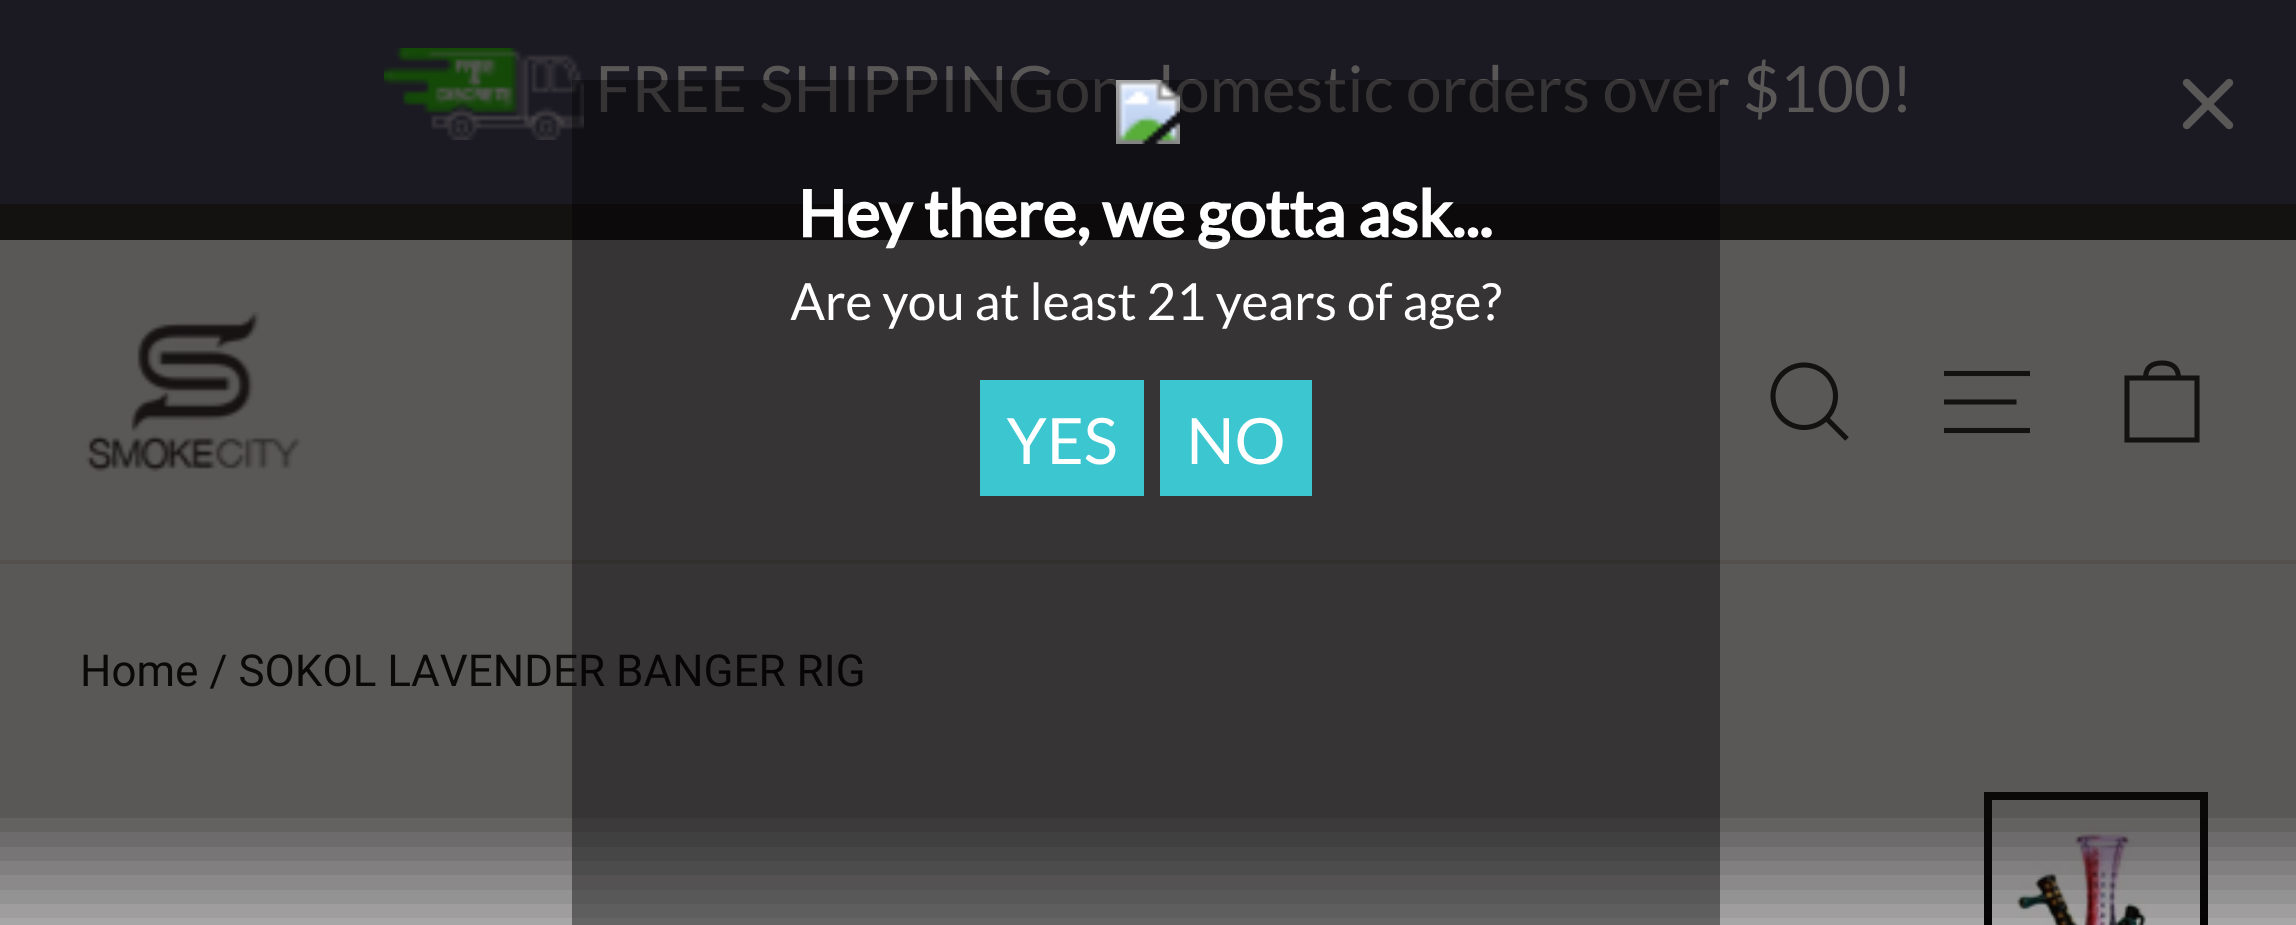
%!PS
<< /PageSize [2296 925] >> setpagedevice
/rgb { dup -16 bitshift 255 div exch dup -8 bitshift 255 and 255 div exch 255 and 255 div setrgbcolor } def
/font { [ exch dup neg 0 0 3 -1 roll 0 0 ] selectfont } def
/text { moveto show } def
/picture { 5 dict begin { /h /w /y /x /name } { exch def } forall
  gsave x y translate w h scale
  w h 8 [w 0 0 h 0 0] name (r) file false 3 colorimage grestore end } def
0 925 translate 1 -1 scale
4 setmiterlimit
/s1 { /Lato-Regular 64 font 16#FFFFFF rgb } def
/s2 { /Roboto-Regular 44 font 16#000000 rgb } def
16#FFFFFF rgb
0 0 2296 925 rectfill
16#353956 rgb
0 0 2296 204 rectfill
(pic3.raw) 384 48 200 92 picture
s1
($100!) 1743 112 text
(pic4.raw) 2182 78 52 52 picture
16#1C1D1D rgb
0 204 2296 36 rectfill
16#E8E8E1 rgb
0 560 2296 4 rectfill
(pic5.raw) 85 312 216 160 picture
16#1C1D1D rgb
5.1 setlinewidth
1835.5 396 moveto 1835.5 413.5 1821.5 427.5 1804 427.5 curveto 1787 427.5 1773 413.5 1773 396 curveto 1773 379 1787 365 1804 365 curveto 1821.5 365 1835.5 379 1835.5 396 curveto closepath 1847 439 moveto 1827 419 lineto stroke
1944 373.5 moveto 2030 373.5 lineto 1944 402 moveto 2016.5 402 lineto 1944 430.5 moveto 2030 430.5 lineto stroke
2127 378 moveto 2197 378 lineto 2197 440 lineto 2127 440 lineto closepath stroke
2145.5 378.5 moveto 2145.5 366.5 2153 363 2162 363 curveto 2171 363 2178.5 366.5 2178.5 378.5 curveto stroke
s2
(Home / SOKOL LAVENDE) 80 686 text
(pic6.raw) 2016 829 130 96 picture
8 setlinewidth
1988 796 216 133 rectstroke
(pic1.raw) 0 0 2296 925 picture
(pic2.raw) 572 80 1148 845 picture
showpage
